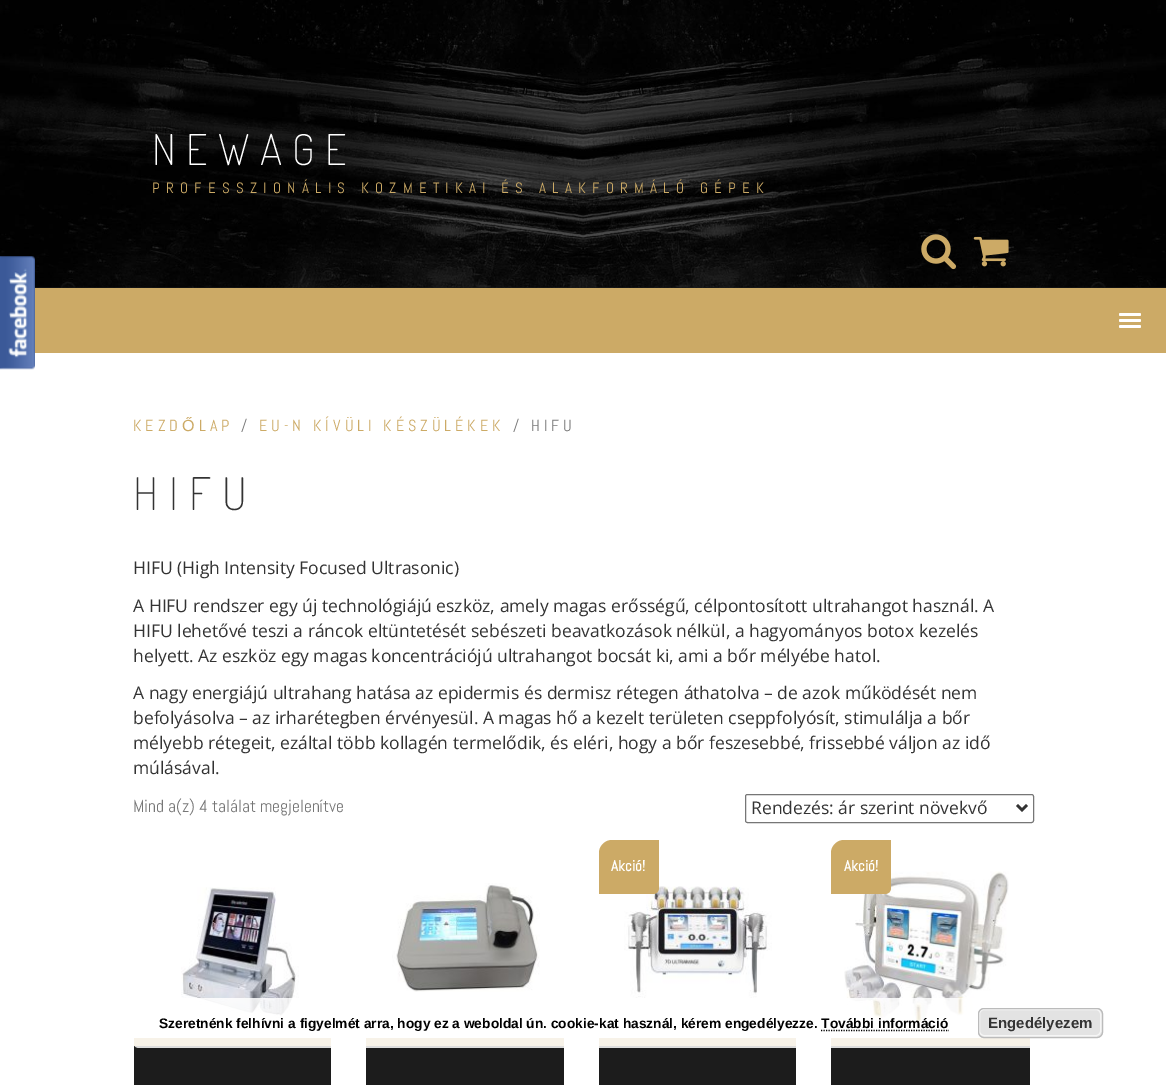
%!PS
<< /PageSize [1166 1085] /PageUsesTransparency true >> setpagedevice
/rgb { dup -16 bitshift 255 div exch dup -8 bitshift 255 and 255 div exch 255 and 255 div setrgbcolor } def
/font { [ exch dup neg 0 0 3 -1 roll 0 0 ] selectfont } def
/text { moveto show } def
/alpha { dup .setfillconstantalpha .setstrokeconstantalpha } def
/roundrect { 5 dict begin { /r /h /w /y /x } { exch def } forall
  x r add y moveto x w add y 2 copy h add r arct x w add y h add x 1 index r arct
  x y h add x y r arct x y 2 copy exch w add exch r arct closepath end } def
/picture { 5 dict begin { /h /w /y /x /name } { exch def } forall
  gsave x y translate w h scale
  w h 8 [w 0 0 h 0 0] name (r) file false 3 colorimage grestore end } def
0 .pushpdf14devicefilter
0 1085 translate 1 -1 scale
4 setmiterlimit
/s1 { /OpenSans-Regular 17.5 font 16#333333 rgb } def
/s2 { /Abel-Regular 17.5 font 16#777777 rgb } def
/s3 { /Abel-Bold 15 font 16#FFFFFF rgb } def
/s4 { /LiberationSans-Bold 13.75 font 16#000000 rgb } def
/s5 { /LiberationSans-Bold 15 font 16#333333 rgb } def
16#FFFFFF rgb
0 0 1166 1085 rectfill
16#1C1C1C rgb
33 287 1133 1 rectfill
(pic2.raw) 0 0 1166 288 picture
16#CCAA66 rgb
33 288 1133 65 rectfill
(pic1.raw) 0 256 35 114 picture
/Dosis-ExtraLight 42.5 font
16#FFFFFF rgb
152 165 moveto 10.5 0 (NEWAGE) ashow
/Abel-Regular 15 font
16#CCAA66 rgb
152 193 moveto 6.25 0 (PROFESSZIONÁLIS KOZMETIKAI ÉS ALAKFORMÁLÓ GÉPEK) ashow
(pic3.raw) 921 234 36 36 picture
(pic4.raw) 973 236 36 31 picture
16#FFFFFF rgb
1119 313 22 3 1.5 roundrect fill
1119 319 22 3 1.5 roundrect fill
1119 325 22 3 1.5 roundrect fill
/Abel-Regular 16.1 font
16#CCAA66 rgb
133 431 moveto 4 0 (KEZD) ashow
/LiberationSans-Regular 16.1 font
182 431 moveto 4 0 (Ő) ashow
/Abel-Regular 16.1 font
199 431 moveto 4 0 (LAP) ashow
16#777777 rgb
241 431 moveto 4 0 (/) ashow
16#CCAA66 rgb
259 431 moveto 4 0 (EU-N KÍVÜLI KÉSZÜLÉKEK) ashow
16#777777 rgb
513 431 moveto 4 0 (/ HIFU) ashow
/Dosis-ExtraLight 45 font
16#333333 rgb
133 510 moveto 11 0 (HIFU) ashow
s1
(HIFU \(High Intensity Focused Ultrasonic\)) 133 574 text
(A HIFU rendszer egy új technológiájú eszköz, amely magas erősségű, célpontosított ultrahangot használ. A) 133 612 text
(HIFU lehetővé teszi a ráncok eltüntetését sebészeti beavatkozások nélkül, a hagyományos botox kezelés) 133 637 text
(helyett. Az eszköz egy magas koncentrációjú ultrahangot bocsát ki, ami a bőr mélyébe hatol.) 133 662 text
(A nagy energiájú ultrahang hatása az epidermis és dermisz rétegen áthatolva – de azok működését nem) 133 699 text
(befolyásolva – az irharétegben érvényesül. A magas hő a kezelt területen cseppfolyósít, stimulálja a bőr) 133 724 text
(mélyebb rétegeit, ezáltal több kollagén termelődik, és eléri, hogy a bőr feszesebbé, frissebbé váljon az idő) 133 749 text
(múlásával.) 133 774 text
s2
(Mind a\(z\) 4 találat megjelenítve) 133 812 text
16#767676 rgb
745.5 794.5 288 28 2 roundrect stroke
16#333333 rgb
2.5 setlinewidth
1017 805 moveto 1022 810 lineto 1027 805 lineto stroke
s1
(Rendezés: ár szerint növekvő) 751 814 text
(pic5.raw) 624 886 148 112 picture
16#CCAA66 rgb
612 840 moveto 659 840 lineto 659 888 lineto 659 891.5 656.5 894 653 894 curveto 599 894 lineto 599 853 lineto 599 846 605 840 612 840 curveto closepath fill
s3
(Akció!) 611 871 text
16#1C1C1C rgb
599 1046 197 39 rectfill
16#CCAA66 rgb
599 1038 197 8 rectfill
(pic6.raw) 844 871 165 159 picture
844 840 moveto 891 840 lineto 891 888 lineto 891 891.5 888.5 894 885 894 curveto 831 894 lineto 831 853 lineto 831 846 837 840 844 840 curveto closepath fill
s3
(Akció!) 844 871 text
16#1C1C1C rgb
831 1046 199 39 rectfill
16#CCAA66 rgb
831 1038 199 8 rectfill
(pic7.raw) 181 887 118 131 picture
16#1C1C1C rgb
134 1046 197 39 rectfill
16#CCAA66 rgb
134 1038 197 8 rectfill
(pic8.raw) 392 883 148 109 picture
16#1C1C1C rgb
366 1046 198 39 rectfill
16#CCAA66 rgb
366 1038 198 8 rectfill
0.85 alpha
16#FFFFFF rgb
133 998 996 50 6 roundrect fill
1 alpha
s4
(Szeretnénk felhívni a figyelmét arra, hogy ez a weboldal ún. cookie-kat használ, kérem engedélyezze. További információ) 159 1028 text
16#E3E3E3 rgb
978 1008 125 30 6 roundrect fill
16#F6F6F6 rgb
1 setlinewidth
979.5 1009.5 121 26 4.5 roundrect stroke
16#BBBBBB rgb
978.5 1008.5 124 29 5.5 roundrect stroke
s5
(Engedélyezem) 988 1028 text
16#000000 rgb
1.2 setlinewidth
[1.25 1.25] 0 setdash
821 1030.5 moveto 949 1030.5 lineto stroke
.poppdf14devicefilter showpage
